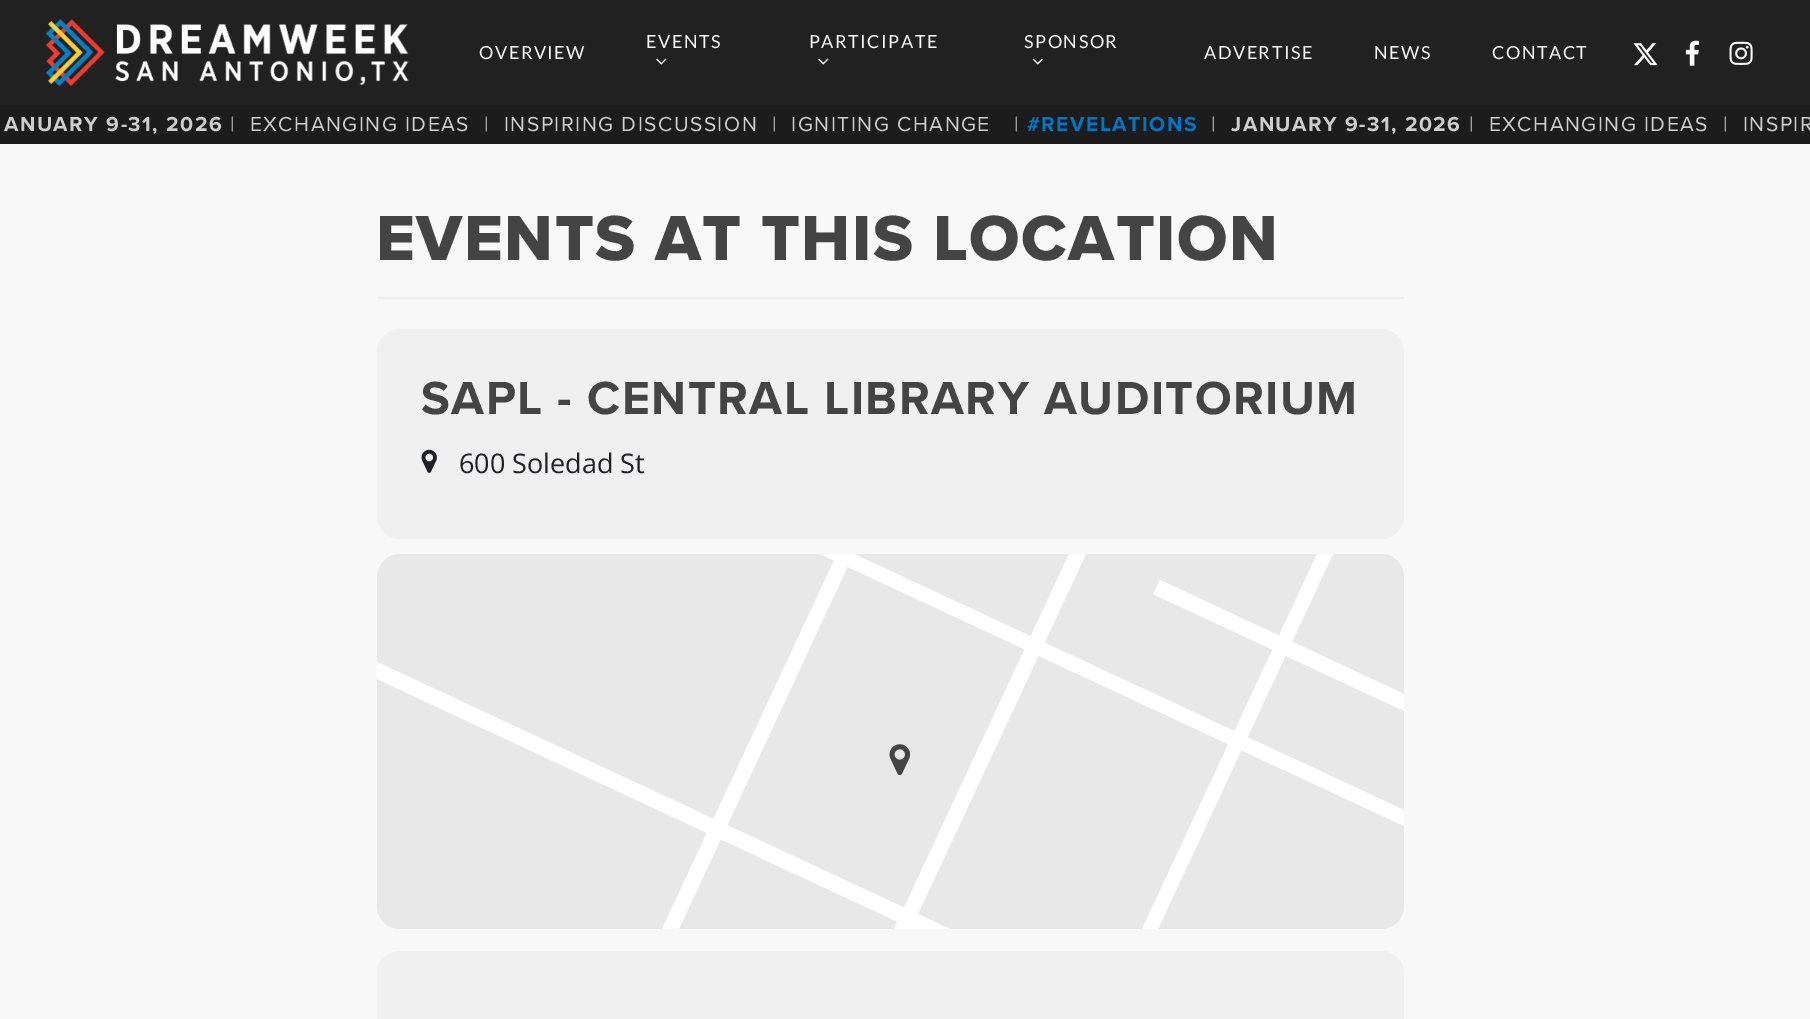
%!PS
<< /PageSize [1810 1019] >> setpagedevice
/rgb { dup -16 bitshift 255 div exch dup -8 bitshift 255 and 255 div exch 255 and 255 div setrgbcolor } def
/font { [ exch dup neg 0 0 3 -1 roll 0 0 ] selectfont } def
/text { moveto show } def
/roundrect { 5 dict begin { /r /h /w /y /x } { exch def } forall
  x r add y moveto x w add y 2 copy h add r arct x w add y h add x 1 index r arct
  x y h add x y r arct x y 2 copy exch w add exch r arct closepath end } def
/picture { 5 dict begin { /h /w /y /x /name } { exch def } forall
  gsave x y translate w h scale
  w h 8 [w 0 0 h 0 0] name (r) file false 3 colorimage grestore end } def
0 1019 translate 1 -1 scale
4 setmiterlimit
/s1 { /OpenSans-Regular 27 font 16#202124 rgb } def
16#F8F8F8 rgb
0 0 1810 1019 rectfill
16#212121 rgb
0 0 1810 105 rectfill
(pic1.raw) 45 18 364 69 picture
/Lato-Regular 18 font
16#F9F9F9 rgb
646 48 moveto 1.5 0 (EVENTS) ashow
(pic2.raw) 656 58 11 7 picture
809 48 moveto 1.5 0 (PARTICIPATE) ashow
(pic2.raw) 818 58 11 7 picture
1024 48 moveto 1.5 0 (SPONSOR) ashow
(pic3.raw) 1032 58 11 7 picture
479 59 moveto 1.5 0 (OVERVIEW) ashow
1204 59 moveto 1.5 0 (ADVERTISE) ashow
1374 59 moveto 1.5 0 (NEWS) ashow
1492 59 moveto 1.5 0 (CONTACT) ashow
(pic4.raw) 1633 43 25 23 picture
(pic5.raw) 1685 40 14 26 picture
(pic6.raw) 1729 41 24 24 picture
16#1C1C1C rgb
0 105 1810 39 rectfill
/ProximaNova-Bold 21 font
16#CECECE rgb
4 131 moveto 1.5 0 (ANUARY 9-31, 2026) ashow
/ProximaNova-Regular 21 font
230 131 moveto 1.5 0 (|  EXCHANGING IDEAS  |  INSPIRING DISCUSSION  |  IGNITING CHANGE) ashow
1014 131 moveto 1.5 0 (|) ashow
/ProximaNova-Bold 21 font
16#0076C6 rgb
1027 131 moveto 1.5 0 (#REVELATIONS) ashow
/ProximaNova-Regular 21 font
16#CECECE rgb
1211 131 moveto 1.5 0 (|) ashow
/ProximaNova-Bold 21 font
1231 131 moveto 1.5 0 (JANUARY 9-31, 2026) ashow
/ProximaNova-Regular 21 font
1469 131 moveto 1.5 0 (|  EXCHANGING IDEAS  |  INSPIR) ashow
16#EEEEEE rgb
377 297 1027 2 rectfill
/ProximaNova-ExtraBold 66 font
16#444444 rgb
376 260 moveto 1.5 0 (EVENTS AT THIS LOCATION) ashow
16#F0F0F0 rgb
377 329 1027 210 23 roundrect fill
/ProximaNova-Bold 48 font
16#444444 rgb
421 414 moveto 1.5 0 (SAPL - CENTRAL LIBRARY AUDITORIUM) ashow
(pic7.raw) 421 449 16 24 picture
s1
(600 Soledad St) 459 473 text
16#E8E8E8 rgb
377 554 1027 375 23 roundrect fill
16#FFFFFF rgb
1404 826 moveto 820 554 lineto 854 554 lineto 1404 810 lineto closepath fill
852 557 moveto 846 554 lineto 837 554 lineto 662 929 lineto 679 929 lineto closepath fill
377 662 moveto 950 929 lineto 913 929 lineto 377 679 lineto closepath fill
894 929 moveto 1069 554 lineto 1086 554 lineto 911 929 lineto closepath fill
1160 580 moveto 1404 694 lineto 1404 711 lineto 1153 594 lineto closepath fill
1142 929 moveto 1317 554 lineto 1333 554 lineto 1158 929 lineto closepath fill
(pic8.raw) 889 744 22 32 picture
16#F0F0F0 rgb
377 951 1027 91 23 roundrect fill
showpage
